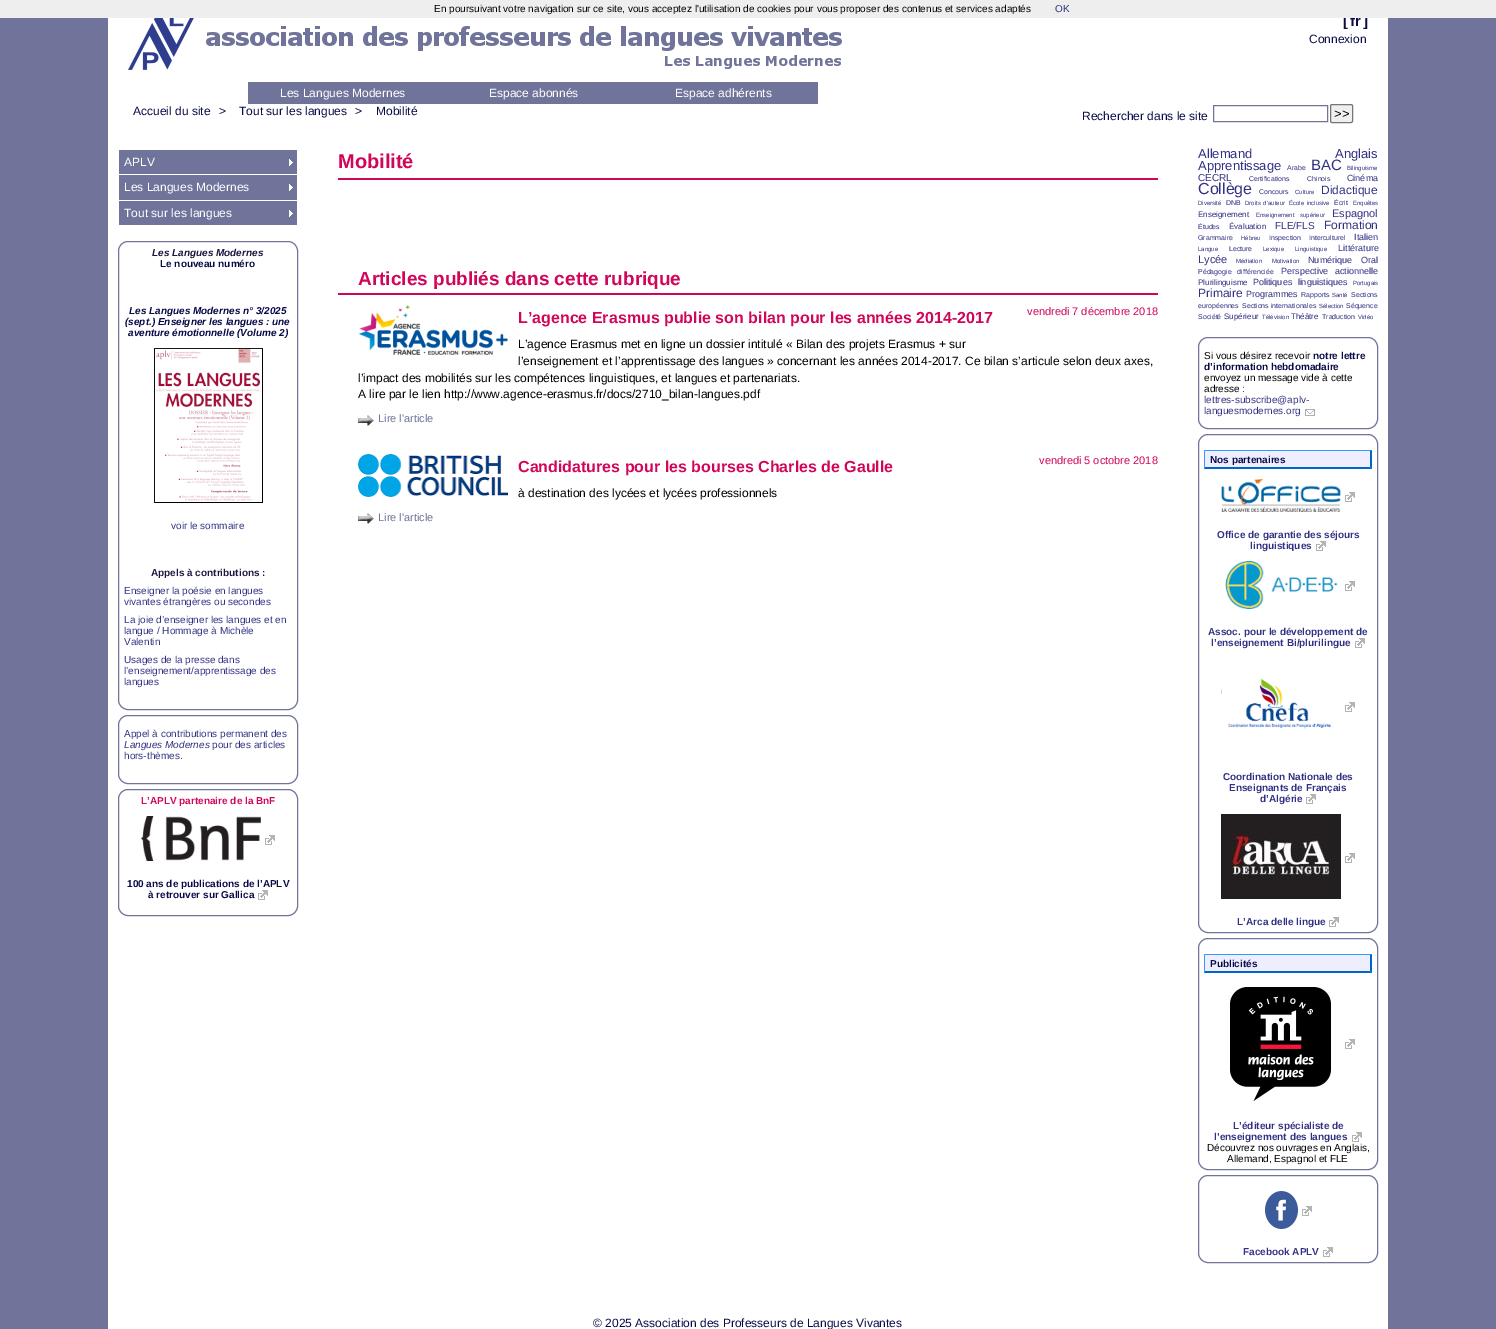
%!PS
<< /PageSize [1496 1329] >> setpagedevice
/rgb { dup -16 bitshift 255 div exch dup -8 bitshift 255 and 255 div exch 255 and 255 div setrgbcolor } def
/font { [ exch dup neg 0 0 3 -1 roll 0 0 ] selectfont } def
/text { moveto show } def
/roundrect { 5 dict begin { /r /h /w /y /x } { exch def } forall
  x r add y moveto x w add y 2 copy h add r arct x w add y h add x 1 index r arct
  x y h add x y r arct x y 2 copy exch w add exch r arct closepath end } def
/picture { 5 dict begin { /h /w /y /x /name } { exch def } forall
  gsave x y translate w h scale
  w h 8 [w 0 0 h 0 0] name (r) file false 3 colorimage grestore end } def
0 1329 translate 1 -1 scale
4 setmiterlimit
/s1 { /LiberationSans-Bold 15 font 16#0A0B49 rgb } def
/s2 { /LiberationSans-Regular 10 font 16#000000 rgb } def
/s3 { /LiberationSans-Regular 10 font 16#323284 rgb } def
/s4 { /LiberationSans-Regular 12 font 16#0A0B49 rgb } def
/s5 { /LiberationSans-Regular 12 font 16#FFFFFF rgb } def
/s6 { /LiberationSans-Regular 13 font 16#000000 rgb } def
/s7 { /LiberationSans-BoldItalic 10 font 16#1E1741 rgb } def
/s8 { /LiberationSans-Bold 10 font 16#0A0B49 rgb } def
/s9 { /LiberationSans-BoldItalic 10 font 16#0A0B49 rgb } def
/s10 { /LiberationSans-Bold 10 font 16#1E1741 rgb } def
/s11 { /LiberationSans-Italic 10 font 16#323284 rgb } def
/s12 { /LiberationSans-Bold 10 font 16#D1065A rgb } def
/s13 { /LiberationSans-Bold 20 font 16#D1065A rgb } def
/s14 { /LiberationSans-Bold 19 font 16#D1065A rgb } def
/s15 { /LiberationSans-Bold 16 font 16#D1065A rgb } def
/s16 { /LiberationSans-Regular 11 font 16#D1065A rgb } def
/s17 { /LiberationSans-Regular 12 font 16#000000 rgb } def
/s18 { /LiberationSans-Regular 11 font 16#70749A rgb } def
/s19 { /LiberationSans-Regular 13 font 16#323284 rgb } def
/s20 { /LiberationSans-Regular 7 font 16#323284 rgb } def
/s21 { /LiberationSans-Regular 15 font 16#323284 rgb } def
/s22 { /LiberationSans-Regular 6 font 16#323284 rgb } def
/s23 { /LiberationSans-Regular 9 font 16#323284 rgb } def
/s24 { /LiberationSans-Regular 16 font 16#323284 rgb } def
/s25 { /LiberationSans-Regular 12 font 16#323284 rgb } def
/s26 { /LiberationSans-Regular 8 font 16#323284 rgb } def
/s27 { /LiberationSans-Regular 11 font 16#323284 rgb } def
/s28 { /LiberationSans-Bold 10 font 16#323284 rgb } def
16#70749A rgb
0 0 1496 1329 rectfill
16#FFFFFF rgb
108 18 1280 1311 rectfill
s1
([) 1343 26 text
(fr) 1350 26 text
(]) 1363 26 text
16#EEEEEE rgb
0 0 1496 18 rectfill
s2
(En poursuivant votre navigation sur ce site, vous acceptez l'utilisation de cookies pour vous proposer des contenus et services adaptés) 434 12 text
s3
(OK) 1055 12 text
(pic1.raw) 206 26 636 43 picture
(pic2.raw) 128 18 66 52 picture
s4
(Connexion) 1309 43 text
16#70749A rgb
248 82 570 22 rectfill
s5
(Les Langues Modernes) 280 97 text
(Espace abonnés) 489 97 text
(Espace adhérents) 675 97 text
s4
(Accueil du site) 133 115 text
(>) 219 115 text
(Tout sur les langues) 239 115 text
(>) 355 115 text
(Mobilité) 376 115 text
(Rechercher dans le site) 1082 120 text
16#70749A rgb
1213.5 105.5 114 16 rectstroke
16#EFEFEF rgb
1330.5 104.5 22 18 1.5 roundrect gsave fill grestore
16#767676 rgb
stroke
s6
(>>) 1334 118 text
16#70749A rgb
119 150 178 24 rectfill
(pic3.raw) 289 159 4 7 picture
s5
(APLV) 124 166 text
16#70749A rgb
119 175 178 25 rectfill
(pic3.raw) 289 184 4 7 picture
s5
(Les Langues Modernes) 124 191 text
16#70749A rgb
119 201 178 24 rectfill
(pic3.raw) 289 210 4 7 picture
s5
(Tout sur les langues) 124 217 text
16#70749A rgb
118.5 241.5 179 468 9.5 roundrect stroke
s7
(Les Langues Modernes) 152 256 text
s8
(Le nouveau numéro) 160 267 text
s9
(Les Langues Modernes n° 3/2025) 129 314 text
(\(sept.\) Enseigner les langues : une) 125 325 text
(aventure émotionnelle \(Volume 2\)) 128 336 text
(pic4.raw) 154 348 109 155 picture
s3
(voir le sommaire) 171 529 text
s10
(Appels à contributions :) 151 576 text
s3
(Enseigner la poésie en langues) 124 594 text
(vivantes étrangères ou secondes) 124 605 text
(La joie d’enseigner les langues et en) 124 623 text
(langue / Hommage à Michèle) 124 634 text
(Valentin) 124 645 text
(Usages de la presse dans) 124 663 text
(l’enseignement/apprentissage des) 124 674 text
(langues) 124 685 text
16#70749A rgb
118.5 715.5 179 68 9.5 roundrect stroke
s3
(Appel à contributions permanent des) 124 737 text
s11
(Langues Modernes) 124 748 text
s3
(pour des articles) 212 748 text
(hors-thèmes) 124 759 text
s2
(.) 180 759 text
16#70749A rgb
118.5 789.5 179 126 9.5 roundrect stroke
s12
(L’APLV partenaire de la BnF) 141 804 text
(pic5.raw) 265 835 10 10 picture
(pic6.raw) 141 816 120 45 picture
s8
(100 ans de publications de l’APLV) 127 887 text
(à retrouver sur Gallica) 148 898 text
(pic5.raw) 258 890 10 10 picture
16#D1065A rgb
338 178 820 2 rectfill
s13
(Mobilité) 338 168 text
338 293 820 2 rectfill
s14
(Articles publiés dans cette rubrique) 358 285 text
(pic7.raw) 358 305 150 50 picture
s15
(L’agence Erasmus publie son bilan pour les années 2014-2017) 518 323 text
s16
(vendredi 7 décembre 2018) 1027 315 text
s17
(L’agence Erasmus met en ligne un dossier intitulé «) 518 348 text
(Bilan des projets Erasmus + sur) 796 348 text
(l’enseignement et l’apprentissage des langues) 518 365 text
(» concernant les années 2014-2017. Ce bilan s’articule selon deux axes,) 767 365 text
(l’impact des mobilités sur les compétences linguistiques, et langues et partenariats.) 358 382 text
(A lire par le lien http://www.agence-erasmus.fr/docs/2710_bilan-langues.pdf) 358 398 text
(pic8.raw) 358 415 16 11 picture
s18
(Lire l'article) 378 422 text
(pic9.raw) 358 454 150 43 picture
s15
(Candidatures pour les bourses Charles de Gaulle) 518 472 text
s16
(vendredi 5 octobre 2018) 1039 464 text
s17
(à destination des lycées et lycées professionnels) 518 497 text
(pic8.raw) 358 513 16 11 picture
s18
(Lire l'article) 378 521 text
s19
(Allemand) 1198 158 text
(Anglais) 1335 158 text
(Apprentissage) 1198 170 text
s20
(Arabe) 1287 170 text
s21
(BAC) 1311 170 text
s22
(Bilinguisme) 1347 170 text
s3
(CECRL) 1198 181 text
s20
(Certifications) 1249 181 text
(Chinois) 1307 181 text
s23
(Cinéma) 1347 181 text
s24
(Collège) 1198 194 text
s20
(Concours) 1259 194 text
s22
(Culture) 1295 194 text
s25
(Didactique) 1321 194 text
s22
(Diversité) 1198 205 text
s20
(DNB) 1226 205 text
/LiberationSans-Regular 6 font
1245 205 moveto 1 0 32 (Droits d’auteur) widthshow
1289 205 moveto 1 0 32 (École inclusive) widthshow
s20
(Écrit) 1334 205 text
s22
(Enquêtes) 1353 205 text
s26
(Enseignement) 1198 217 text
/LiberationSans-Regular 6 font
1256 217 moveto 4 0 32 (Enseignement supérieur) widthshow
s27
(Espagnol) 1332 217 text
s20
(Études) 1198 229 text
s26
(Évaluation) 1229 229 text
s3
(FLE/FLS) 1275 229 text
s25
(Formation) 1324 229 text
s20
(Grammaire) 1198 240 text
s22
(Hébreu) 1241 240 text
s20
(Inspection) 1269 240 text
(Interculturel) 1309 240 text
s23
(Italien) 1354 240 text
s22
(Langue) 1198 251 text
s20
(Lecture) 1229 251 text
s22
(Lexique) 1263 251 text
(Linguistique) 1295 251 text
s23
(Littérature) 1338 251 text
s27
(Lycée) 1198 263 text
s22
(Médiation) 1236 263 text
(Motivation) 1272 263 text
s23
(Numérique) 1308 263 text
(Oral) 1361 263 text
/LiberationSans-Regular 7 font
1198 274 moveto 4 0 32 (Pédagogie différenciée) widthshow
/LiberationSans-Regular 9 font
1281 274 moveto 4 0 32 (Perspective actionnelle) widthshow
s26
(Plurilinguisme) 1198 285 text
/LiberationSans-Regular 9 font
1253 285 moveto 3 0 32 (Politiques linguistiques) widthshow
s22
(Portugais) 1353 285 text
s25
(Primaire) 1198 297 text
s23
(Programmes) 1246 297 text
s20
(Rapports) 1301 297 text
s22
(Santé) 1332 297 text
s20
(Sections) 1351 297 text
(européennes) 1198 308 text
(Sections internationales) 1242 308 text
s22
(Sélection) 1319 308 text
s20
(Séquence) 1346 308 text
(Société) 1198 319 text
s26
(Supérieur) 1224 319 text
s22
(Télévision) 1262 319 text
s26
(Théâtre) 1291 319 text
s20
(Traduction) 1322 319 text
s22
(Vidéo) 1358 319 text
16#70749A rgb
1198.5 337.5 179 91 9.5 roundrect stroke
s2
(Si vous désirez recevoir) 1204 359 text
s8
(notre lettre) 1313 359 text
(d’information hebdomadaire) 1204 370 text
s2
(envoyez un message vide à cette) 1204 381 text
(adresse :) 1204 392 text
s3
(lettres-subscribe@aplv-) 1204 403 text
(languesmodernes.org) 1204 414 text
(pic10.raw) 1305 409 10 7 picture
16#70749A rgb
1198.5 434.5 179 498 9.5 roundrect stroke
16#EEEEFF rgb
1205 451 165 16 rectfill
16#3399FF rgb
1204 450 moveto 1372 450 lineto 1370 451 lineto 1205 451 lineto closepath fill
16#0066CC rgb
1372 450 moveto 1372 469 lineto 1370 467 lineto 1370 451 lineto closepath fill
1372 469 moveto 1204 469 lineto 1205 467 lineto 1370 467 lineto closepath fill
16#3399FF rgb
1204 469 moveto 1204 450 lineto 1205 451 lineto 1205 467 lineto closepath fill
s8
(Nos partenaires) 1210 463 text
(pic5.raw) 1345 492 10 10 picture
(pic11.raw) 1221 479 120 33 picture
s28
(Office de garantie des séjours) 1217 538 text
(linguistiques) 1250 549 text
(pic5.raw) 1316 541 10 10 picture
(pic5.raw) 1345 581 10 10 picture
(pic12.raw) 1225 561 113 48 picture
(Assoc. pour le développement de) 1208 635 text
(l’enseignement Bi/plurilingue) 1211 646 text
(pic5.raw) 1355 638 10 10 picture
(pic5.raw) 1345 702 10 10 picture
(pic13.raw) 1221 658 111 71 picture
(Coordination Nationale des) 1223 780 text
(Enseignants de Français) 1229 791 text
(d’Algérie) 1260 802 text
(pic5.raw) 1306 794 10 10 picture
(pic5.raw) 1345 853 10 10 picture
(pic14.raw) 1221 814 120 85 picture
(L’Arca delle lingue) 1237 925 text
(pic5.raw) 1329 917 10 10 picture
16#70749A rgb
1198.5 938.5 179 231 9.5 roundrect stroke
16#EEEEFF rgb
1205 955 165 16 rectfill
16#3399FF rgb
1204 954 moveto 1372 954 lineto 1370 955 lineto 1205 955 lineto closepath fill
16#0066CC rgb
1372 954 moveto 1372 973 lineto 1370 971 lineto 1370 955 lineto closepath fill
1372 973 moveto 1204 973 lineto 1205 971 lineto 1370 971 lineto closepath fill
16#3399FF rgb
1204 973 moveto 1204 954 lineto 1205 955 lineto 1205 971 lineto closepath fill
s8
(Publicités) 1210 967 text
(pic5.raw) 1345 1039 10 10 picture
(pic15.raw) 1230 987 101 114 picture
s28
(L’éditeur spécialiste de) 1233 1129 text
(l’enseignement des langues) 1214 1140 text
(pic5.raw) 1352 1132 10 10 picture
s2
(Découvrez nos ouvrages en Anglais,) 1207 1151 text
(Allemand, Espagnol et FLE) 1227 1162 text
16#70749A rgb
1198.5 1175.5 179 87 9.5 roundrect stroke
(pic5.raw) 1302 1206 10 10 picture
(pic16.raw) 1265 1191 33 38 picture
s28
(Facebook APLV) 1243 1255 text
(pic5.raw) 1323 1247 10 10 picture
s4
(© 2025 Association des Professeurs de Langues Vivantes) 593 1327 text
showpage
